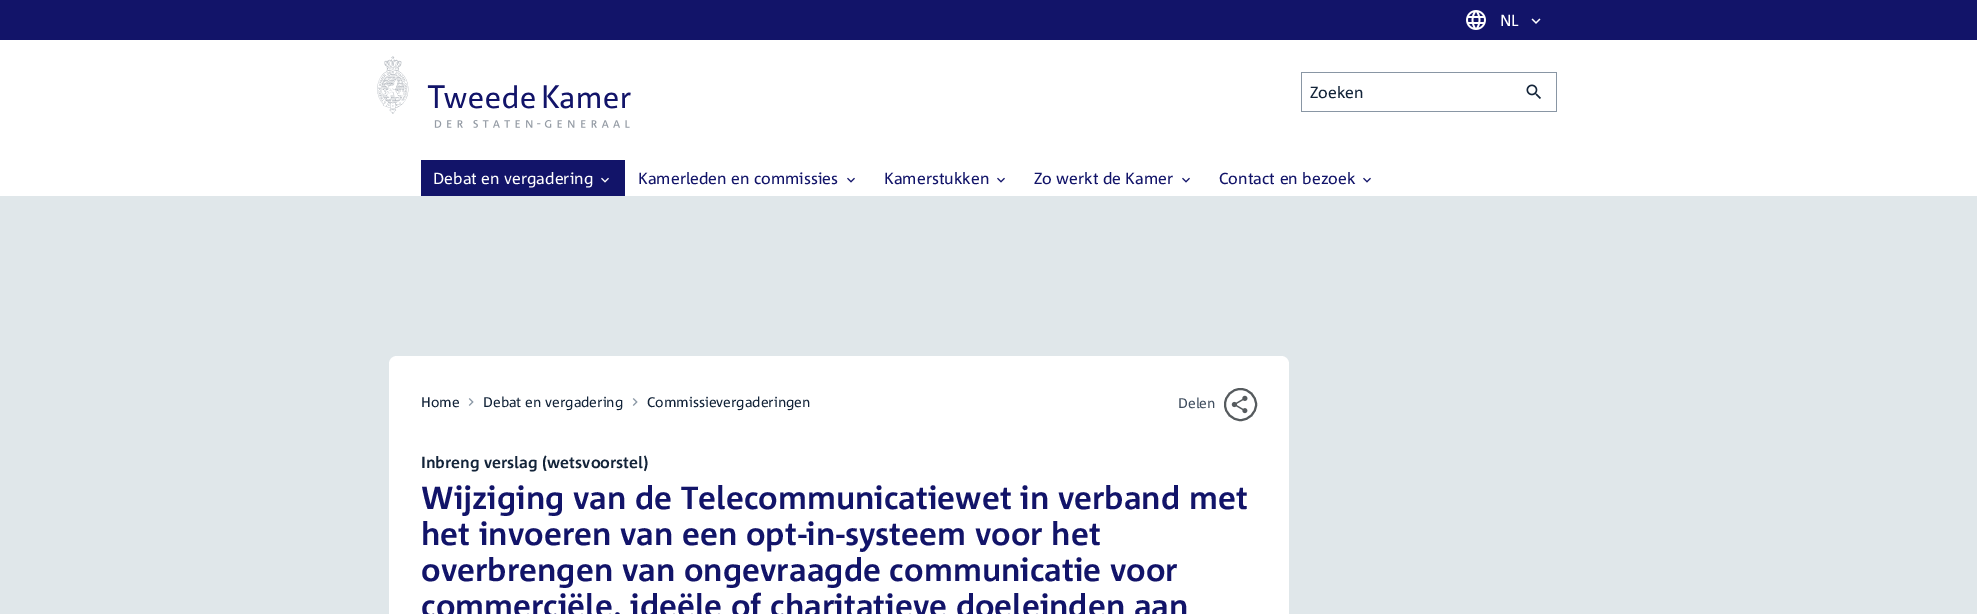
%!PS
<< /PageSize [1977 614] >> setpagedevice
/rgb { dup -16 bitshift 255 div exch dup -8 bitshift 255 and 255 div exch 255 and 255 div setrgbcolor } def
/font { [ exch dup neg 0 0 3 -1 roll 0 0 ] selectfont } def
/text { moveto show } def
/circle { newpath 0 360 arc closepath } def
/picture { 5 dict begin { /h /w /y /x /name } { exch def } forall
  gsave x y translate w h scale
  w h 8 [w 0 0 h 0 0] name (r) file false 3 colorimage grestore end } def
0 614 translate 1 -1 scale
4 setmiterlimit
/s1 { /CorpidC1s-Regular 16 font 16#FFFFFF rgb } def
/s2 { /CorpidC1s-Regular 16 font 16#132439 rgb } def
/s3 { /CorpidC1s-Regular 16 font 16#121469 rgb } def
/s4 { /CorpidC1s-Regular 14 font 16#132439 rgb } def
/s5 { /CorpidC1s-Regular 14 font 16#425061 rgb } def
/s6 { /CorpidC1s-Bold 16 font 16#132439 rgb } def
/s7 { /CorpidC1s-Bold 32 font 16#121469 rgb } def
16#FFFFFF rgb
0 0 1977 614 rectfill
16#121469 rgb
0 0 1977 40 rectfill
(pic1.raw) 1466 10 20 20 picture
s1
(NL) 1500 26 text
(pic2.raw) 1531 18 10 6 picture
(pic3.raw) 377 56 254 72 picture
16#8996A4 rgb
1301 72 256 1 rectfill
1301 111 211 1 rectfill
1301 72 1 40 rectfill
s2
(Zoeken) 1310 98 text
16#8996A4 rgb
1556 72 1 40 rectfill
1512 111 45 1 rectfill
(pic4.raw) 1526 84 15 15 picture
16#121469 rgb
421 160 204 36 rectfill
s1
(Debat en vergadering) 433 184 text
(pic5.raw) 601 177 8 6 picture
s3
(Kamerleden en commissies) 638 184 text
(pic6.raw) 847 177 8 6 picture
(Kamerstukken) 884 184 text
(pic6.raw) 997 177 8 6 picture
(Zo werkt de Kamer) 1034 184 text
(pic6.raw) 1182 177 8 6 picture
(Contact en bezoek) 1219 184 text
(pic6.raw) 1363 177 8 6 picture
16#E0E7EA rgb
0 196 1977 418 rectfill
16#FFFFFF rgb
397 356 moveto 1281 356 lineto 1285.5 356 1289 359.5 1289 364 curveto 1289 453 lineto 389 453 lineto 389 364 lineto 389 359.5 392.5 356 397 356 curveto closepath fill
s4
(Home) 421 407 text
(pic7.raw) 468 398 6 8 picture
(Debat en vergadering) 483 407 text
(pic7.raw) 632 398 6 8 picture
(Commissievergaderingen) 647 407 text
s5
(Delen) 1178 408 text
16#565B5E rgb
2 setlinewidth
1240.5 404.5 15.5 circle stroke
(pic8.raw) 1231 395 17 19 picture
16#FFFFFF rgb
389 453 900 161 rectfill
s6
(Inbreng verslag \(wetsvoorstel\)) 421 468 text
s7
(Wijziging van de Telecommunicatiewet in verband met) 421 509 text
(het invoeren van een opt-in-systeem voor het) 421 545 text
(overbrengen van ongevraagde communicatie voor) 421 581 text
(commerciële, ideële of charitatieve doeleinden aan) 421 617 text
showpage
